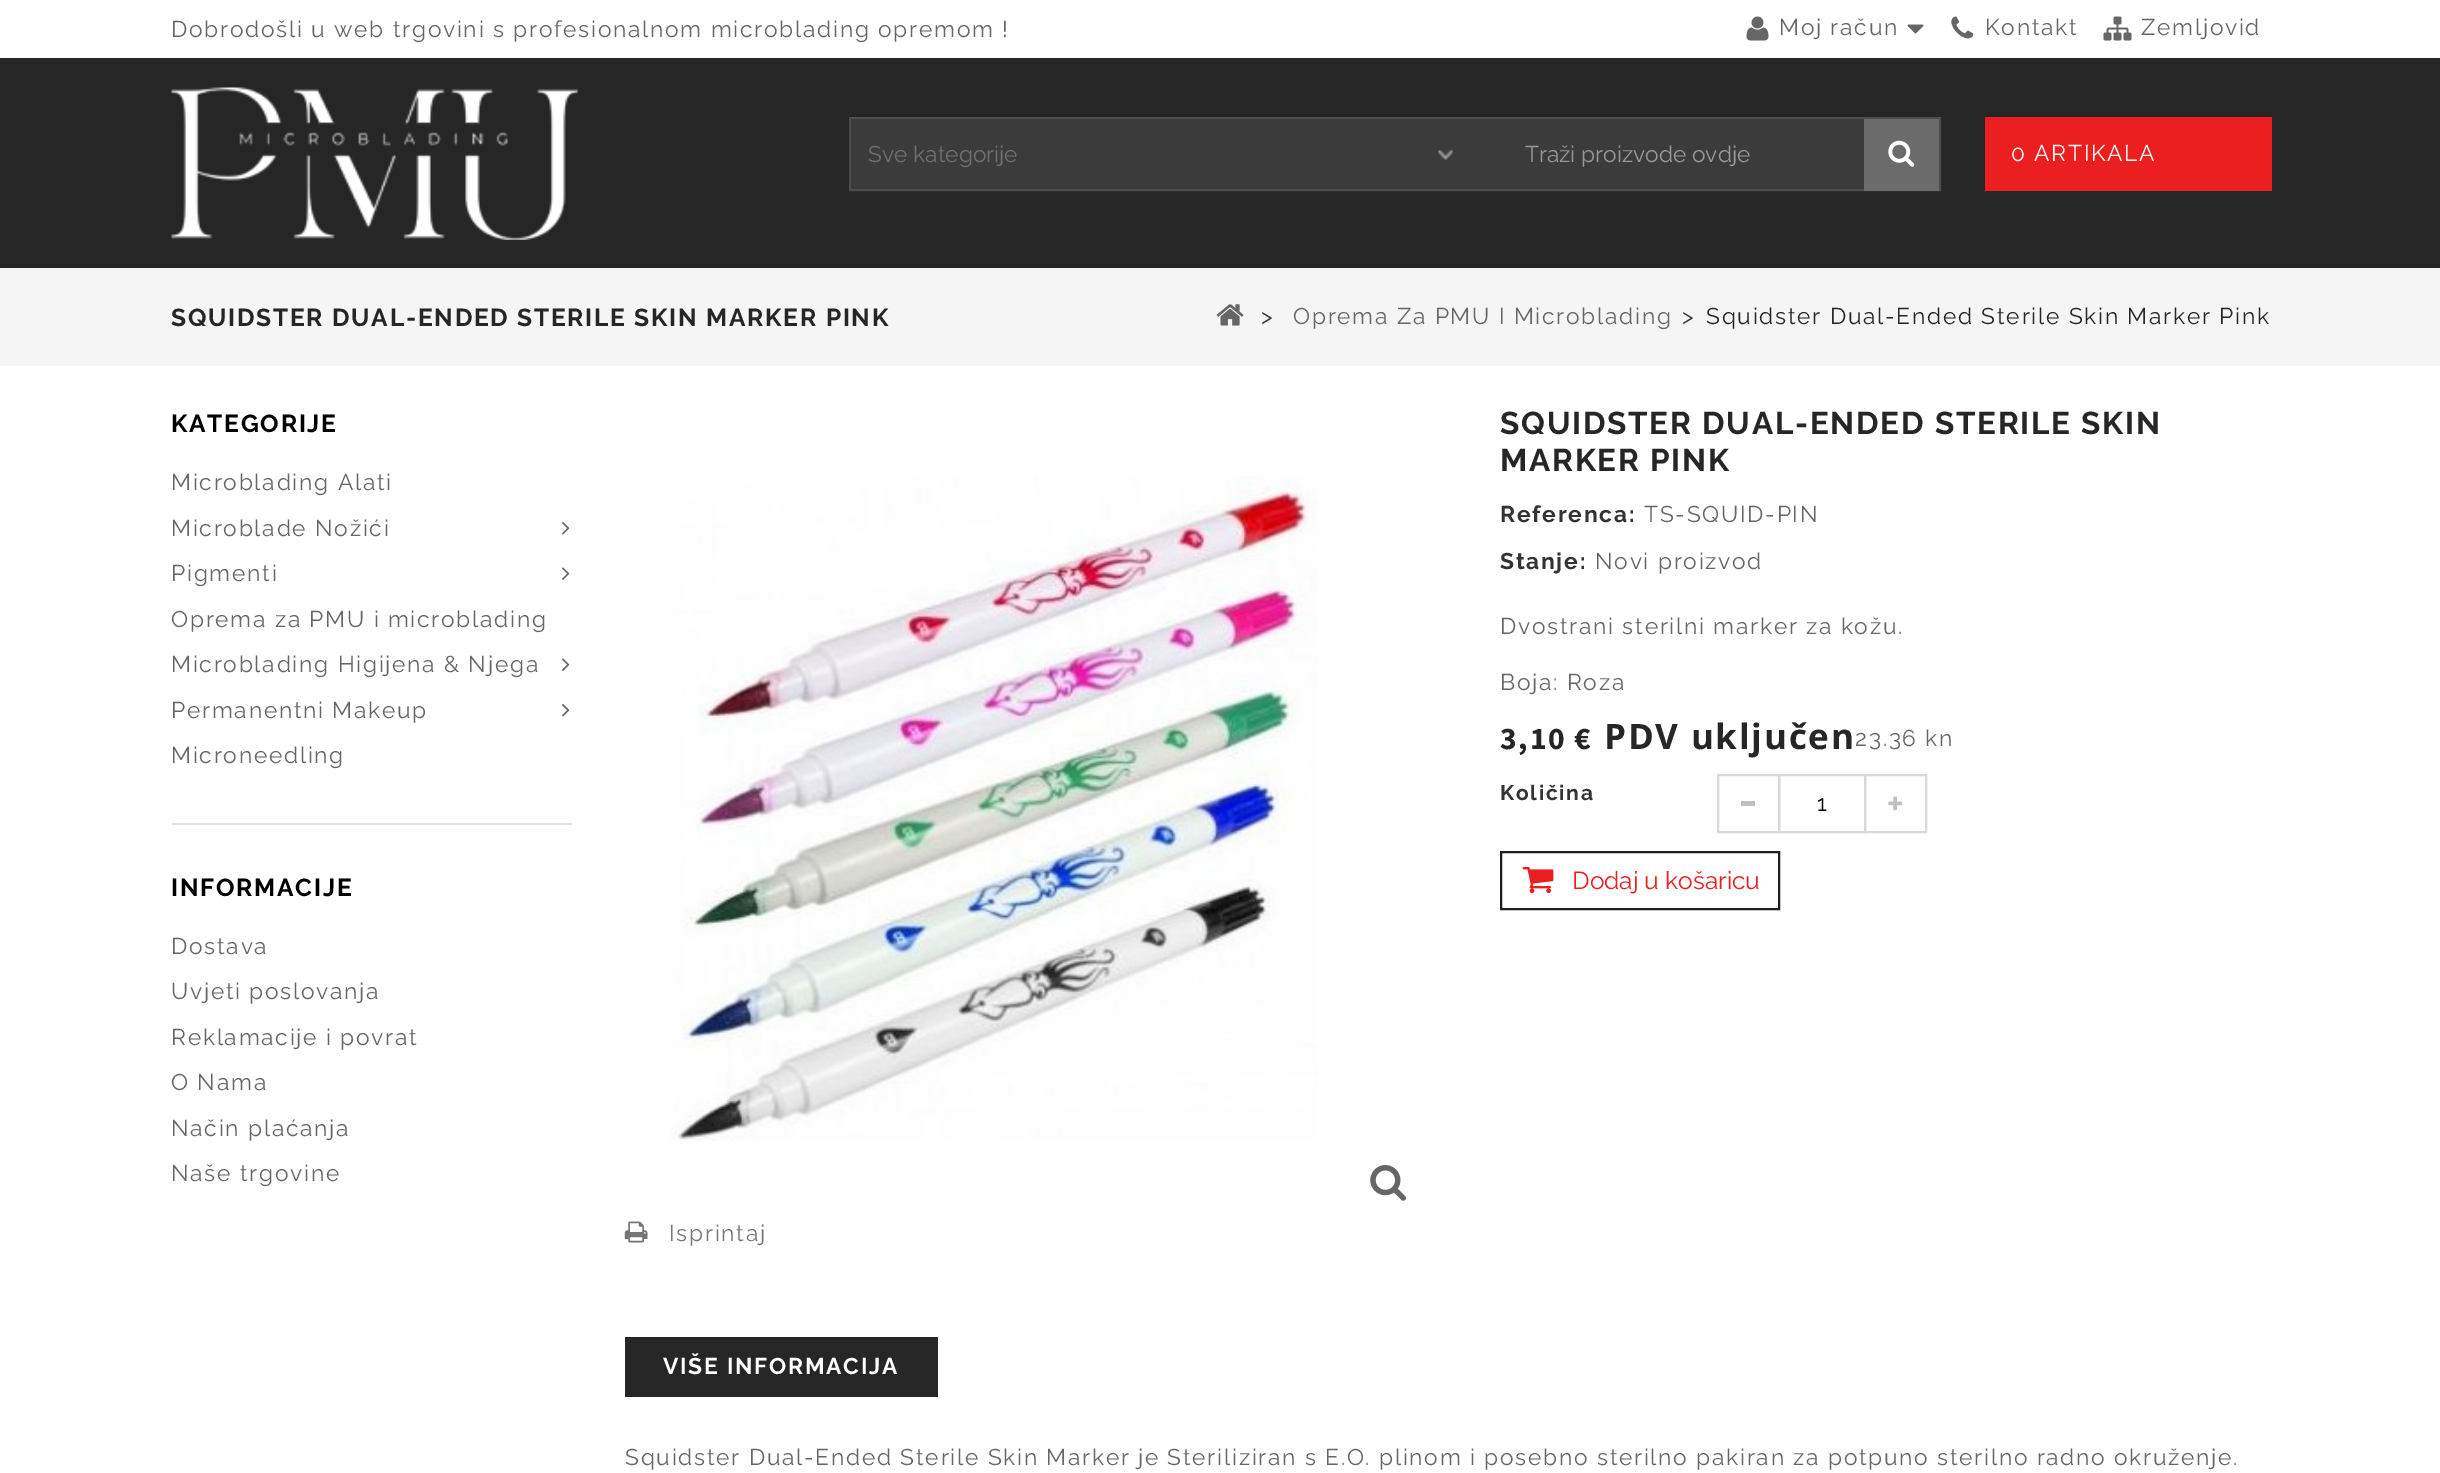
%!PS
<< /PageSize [2440 1473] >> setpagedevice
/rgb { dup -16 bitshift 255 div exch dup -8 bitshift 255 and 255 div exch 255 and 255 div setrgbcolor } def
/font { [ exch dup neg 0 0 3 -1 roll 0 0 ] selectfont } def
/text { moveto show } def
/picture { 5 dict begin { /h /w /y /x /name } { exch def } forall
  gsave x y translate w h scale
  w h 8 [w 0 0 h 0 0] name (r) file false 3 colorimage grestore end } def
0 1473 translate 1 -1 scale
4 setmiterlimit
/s1 { /Raleway-Regular 22.75 font 16#707070 rgb } def
/s2 { /Raleway-Regular 22.75 font 16#999999 rgb } def
/s3 { /Raleway-Regular 22.75 font 16#000000 rgb } def
/s4 { /Raleway-Regular 24.5 font 16#EB1F1F rgb } def
16#FFFFFF rgb
0 0 2440 1473 rectfill
/Raleway-Regular 22.75 font
16#666666 rgb
171 37 moveto 1.75 0 (Dobrodošli u web trgovini s profesionalnom microblading opremom !) ashow
(pic1.raw) 1746 16 23 25 picture
1779 35 moveto 1.75 0 (Moj račun) ashow
(pic2.raw) 1907 24 17 10 picture
(pic3.raw) 1951 16 23 23 picture
1985 35 moveto 1.75 0 (Kontakt) ashow
(pic4.raw) 2103 16 29 25 picture
2141 35 moveto 1.75 0 (Zemljovid) ashow
16#262626 rgb
0 58 2440 210 rectfill
(pic5.raw) 171 87 407 153 picture
16#4D4D4D rgb
2 setlinewidth
850 118 1090 72 rectstroke
16#3B3B3B rgb
851 119 1013 70 rectfill
(pic6.raw) 1438 150 15 10 picture
s1
(Sve kategorije) 868 162 text
s2
(Traži proizvode ovdje) 1525 162 text
16#6B6B6B rgb
1864 119 75 72 rectfill
(pic7.raw) 1888 140 27 27 picture
16#EB1F1F rgb
1985 117 287 74 rectfill
16#FFFFFF rgb
2011 161 moveto 1.75 0 (0 ARTIKALA) ashow
16#F5F5F5 rgb
0 268 2440 98 rectfill
/Raleway-Bold 24.5 font
16#262626 rgb
171 326 moveto 1.75 0 (SQUIDSTER DUAL-ENDED STERILE SKIN MARKER PINK) ashow
(pic8.raw) 1216 304 28 22 picture
/Raleway-Regular 22.75 font
16#333333 rgb
1261 324 moveto 1.75 0 (>) ashow
16#666666 rgb
1293 324 moveto 1.75 0 (Oprema Za PMU I Microblading) ashow
16#333333 rgb
1682 324 moveto 1.75 0 (>) ashow
16#262626 rgb
1706 324 moveto 1.75 0 (Squidster Dual-Ended Sterile Skin Marker Pink) ashow
16#E5E5E5 rgb
172 823 400 2 rectfill
/Raleway-Bold 24.5 font
16#000000 rgb
171 432 moveto 1.75 0 (KATEGORIJE) ashow
/Raleway-Regular 22.75 font
16#666666 rgb
171 490 moveto 1.75 0 (Microblading Alati) ashow
171 536 moveto 1.75 0 (Microblade Nožići) ashow
(pic9.raw) 562 521 8 14 picture
171 581 moveto 1.75 0 (Pigmenti) ashow
(pic10.raw) 562 567 8 13 picture
171 627 moveto 1.75 0 (Oprema za PMU i microblading) ashow
171 672 moveto 1.75 0 (Microblading Higijena & Njega) ashow
(pic10.raw) 562 658 8 13 picture
171 718 moveto 1.75 0 (Permanentni Makeup) ashow
(pic9.raw) 562 703 8 14 picture
171 763 moveto 1.75 0 (Microneedling) ashow
/Raleway-Bold 24.5 font
16#000000 rgb
171 896 moveto 1.75 0 (INFORMACIJE) ashow
/Raleway-Regular 22.75 font
16#666666 rgb
171 954 moveto 1.75 0 (Dostava) ashow
171 999 moveto 1.75 0 (Uvjeti poslovanja) ashow
171 1045 moveto 1.75 0 (Reklamacije i povrat) ashow
171 1090 moveto 1.75 0 (O Nama) ashow
171 1136 moveto 1.75 0 (Način plaćanja) ashow
171 1181 moveto 1.75 0 (Naše trgovine) ashow
/Raleway-Bold 31.5 font
16#262626 rgb
1500 434 moveto 1.75 0 (SQUIDSTER DUAL-ENDED STERILE SKIN) ashow
1500 471 moveto 1.75 0 (MARKER PINK) ashow
/Raleway-Bold 22.75 font
16#333333 rgb
1500 522 moveto 1.75 0 (Referenca:) ashow
/Raleway-Regular 22.75 font
16#666666 rgb
1644 522 moveto 1.75 0 (TS-SQUID-PIN) ashow
/Raleway-Bold 22.75 font
16#333333 rgb
1500 569 moveto 1.75 0 (Stanje:) ashow
/Raleway-Regular 22.75 font
16#666666 rgb
1595 569 moveto 1.75 0 (Novi proizvod) ashow
1500 634 moveto 1.75 0 (Dvostrani sterilni marker za kožu.) ashow
1500 690 moveto 1.75 0 (Boja: Roza) ashow
/SourceSansPro-Bold 31.5 font
16#262626 rgb
1500 749 moveto 1.75 0 (3,10 €) ashow
/OpenSans-Bold 35 font
1604 749 moveto 1.75 0 (PDV uključen) ashow
/Raleway-Regular 22.75 font
16#666666 rgb
1855 746 moveto 1.75 0 (23.36 kn) ashow
/Raleway-Bold 21 font
16#333333 rgb
1500 800 moveto 1.75 0 (Količina) ashow
16#D9D9D9 rgb
1718 775 61 57 rectstroke
16#C0C0C0 rgb
1741 801 14 5 rectfill
16#D9D9D9 rgb
1779 775 86 57 rectstroke
1865 775 61 57 rectstroke
(pic11.raw) 1888 796 14 15 picture
s3
(1) 1817 811 text
16#1D1F1F rgb
1501 852 278 57 rectstroke
(pic12.raw) 1522 867 32 27 picture
s4
(Dodaj u košaricu) 1572 889 text
(pic13.raw) 671 476 647 665 picture
(pic14.raw) 1370 1165 36 36 picture
(pic15.raw) 624 1221 24 22 picture
/Raleway-Regular 22.75 font
16#777676 rgb
669 1241 moveto 1.75 0 (Isprintaj) ashow
16#262626 rgb
625 1337 313 60 rectfill
/Raleway-Bold 22.75 font
16#FFFFFF rgb
663 1374 moveto 1.75 0 (VIŠE INFORMACIJA) ashow
/Raleway-Regular 22.75 font
16#666666 rgb
625 1465 moveto 1.75 0 (Squidster Dual-Ended Sterile Skin Marker je Steriliziran s E.O. plinom i posebno sterilno pakiran za potpuno sterilno radno okruženje.) ashow
showpage
